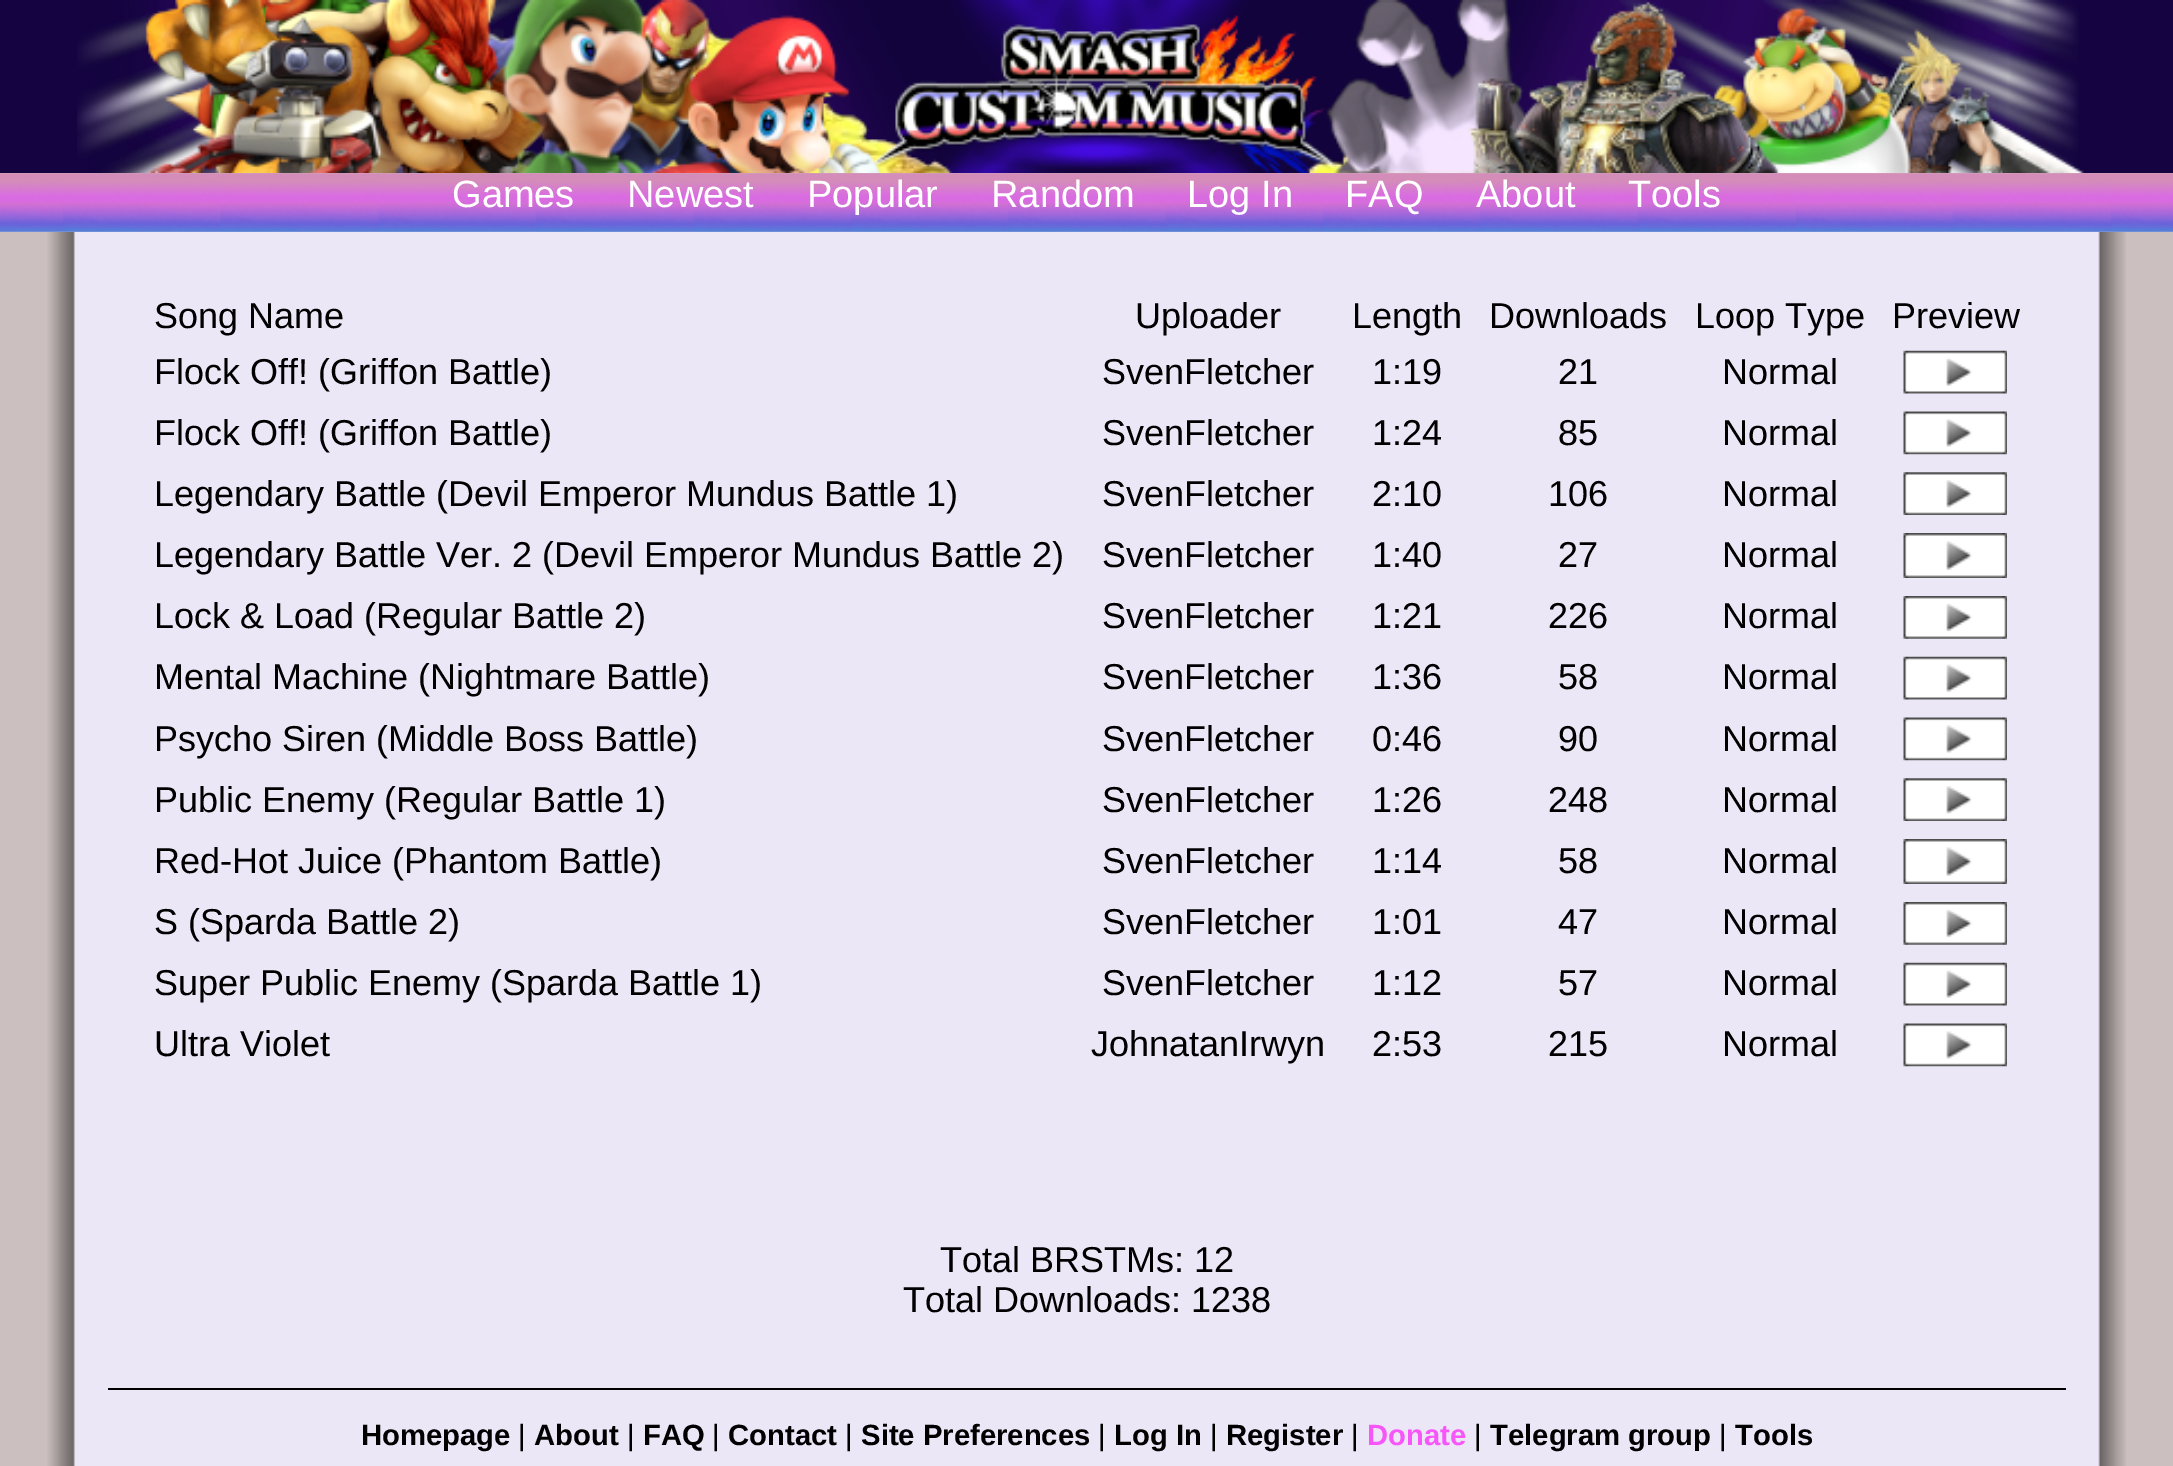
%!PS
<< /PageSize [2173 1466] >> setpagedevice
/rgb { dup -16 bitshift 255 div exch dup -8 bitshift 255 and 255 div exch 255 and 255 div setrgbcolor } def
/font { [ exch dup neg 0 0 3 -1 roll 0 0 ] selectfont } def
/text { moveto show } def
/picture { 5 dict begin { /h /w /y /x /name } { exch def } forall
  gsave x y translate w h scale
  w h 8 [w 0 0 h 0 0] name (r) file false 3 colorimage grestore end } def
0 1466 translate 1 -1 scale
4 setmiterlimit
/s1 { /LiberationSans-Regular 38 font 16#FFFFFF rgb } def
/s2 { /LiberationSans-Regular 36 font 16#000000 rgb } def
/s3 { /LiberationSans-Bold 29.25 font 16#000000 rgb } def
/s4 { /LiberationSans-Regular 29.25 font 16#000000 rgb } def
/s5 { /LiberationSans-Bold 29.25 font 16#F756F9 rgb } def
16#CBC0BF rgb
0 0 2173 1466 rectfill
16#140340 rgb
0 0 2173 232 rectfill
(pic1.raw) 77 0 2007 173 picture
(pic2.raw) 0 173 2173 59 picture
s1
(Games) 452 207 text
(Newest) 627 207 text
(Popular) 807 207 text
(Random) 991 207 text
(Log In) 1187 207 text
(FAQ) 1345 207 text
(About) 1476 207 text
(Tools) 1628 207 text
(pic3.raw) 47 232 2079 1234 picture
s2
(Song Name) 154 328 text
(Uploader) 1135 328 text
(Length) 1352 328 text
(Downloads) 1489 328 text
(Loop Type) 1695 328 text
(Preview) 1892 328 text
(Flock Off! \(Griffon Battle\)) 154 384 text
(SvenFletcher) 1102 384 text
(1:19) 1372 384 text
(21) 1558 384 text
(Normal) 1722 384 text
(pic4.raw) 1903 350 104 44 picture
(Flock Off! \(Griffon Battle\)) 154 445 text
(SvenFletcher) 1102 445 text
(1:24) 1372 445 text
(85) 1558 445 text
(Normal) 1722 445 text
(pic5.raw) 1903 411 104 44 picture
(Legendary Battle \(Devil Emperor Mundus Battle 1\)) 154 506 text
(SvenFletcher) 1102 506 text
(2:10) 1372 506 text
(106) 1548 506 text
(Normal) 1722 506 text
(pic6.raw) 1903 472 104 43 picture
(Legendary Battle Ver. 2 \(Devil Emperor Mundus Battle 2\)) 154 567 text
(SvenFletcher) 1102 567 text
(1:40) 1372 567 text
(27) 1558 567 text
(Normal) 1722 567 text
(pic7.raw) 1903 533 104 45 picture
(Lock & Load \(Regular Battle 2\)) 154 628 text
(SvenFletcher) 1102 628 text
(1:21) 1372 628 text
(226) 1548 628 text
(Normal) 1722 628 text
(pic8.raw) 1903 596 104 43 picture
(Mental Machine \(Nightmare Battle\)) 154 689 text
(SvenFletcher) 1102 689 text
(1:36) 1372 689 text
(58) 1558 689 text
(Normal) 1722 689 text
(pic4.raw) 1903 656 104 44 picture
(Psycho Siren \(Middle Boss Battle\)) 154 751 text
(SvenFletcher) 1102 751 text
(0:46) 1372 751 text
(90) 1558 751 text
(Normal) 1722 751 text
(pic5.raw) 1903 717 104 44 picture
(Public Enemy \(Regular Battle 1\)) 154 812 text
(SvenFletcher) 1102 812 text
(1:26) 1372 812 text
(248) 1548 812 text
(Normal) 1722 812 text
(pic6.raw) 1903 778 104 43 picture
(Red-Hot Juice \(Phantom Battle\)) 154 873 text
(SvenFletcher) 1102 873 text
(1:14) 1372 873 text
(58) 1558 873 text
(Normal) 1722 873 text
(pic7.raw) 1903 839 104 45 picture
(S \(Sparda Battle 2\)) 154 934 text
(SvenFletcher) 1102 934 text
(1:01) 1372 934 text
(47) 1558 934 text
(Normal) 1722 934 text
(pic8.raw) 1903 902 104 43 picture
(Super Public Enemy \(Sparda Battle 1\)) 154 995 text
(SvenFletcher) 1102 995 text
(1:12) 1372 995 text
(57) 1558 995 text
(Normal) 1722 995 text
(pic4.raw) 1903 962 104 44 picture
(Ultra Violet) 154 1056 text
(JohnatanIrwyn) 1091 1056 text
(2:53) 1372 1056 text
(215) 1548 1056 text
(Normal) 1722 1056 text
(pic5.raw) 1903 1023 104 44 picture
(Total BRSTMs: 12) 940 1272 text
(Total Downloads: 1238) 903 1312 text
108 1388 1958 2 rectfill
s3
(Homepage) 361 1445 text
s4
(|) 518 1445 text
s3
(About) 534 1445 text
s4
(|) 627 1445 text
s3
(FAQ) 643 1445 text
s4
(|) 712 1445 text
s3
(Contact) 728 1445 text
s4
(|) 845 1445 text
s3
(Site Preferences) 861 1445 text
s4
(|) 1098 1445 text
s3
(Log In) 1114 1445 text
s4
(|) 1210 1445 text
s3
(Register) 1226 1445 text
s4
(|) 1351 1445 text
s5
(Donate) 1367 1445 text
s4
(|) 1474 1445 text
s3
(Telegram group) 1490 1445 text
s4
(|) 1719 1445 text
s3
(Tools) 1735 1445 text
showpage
